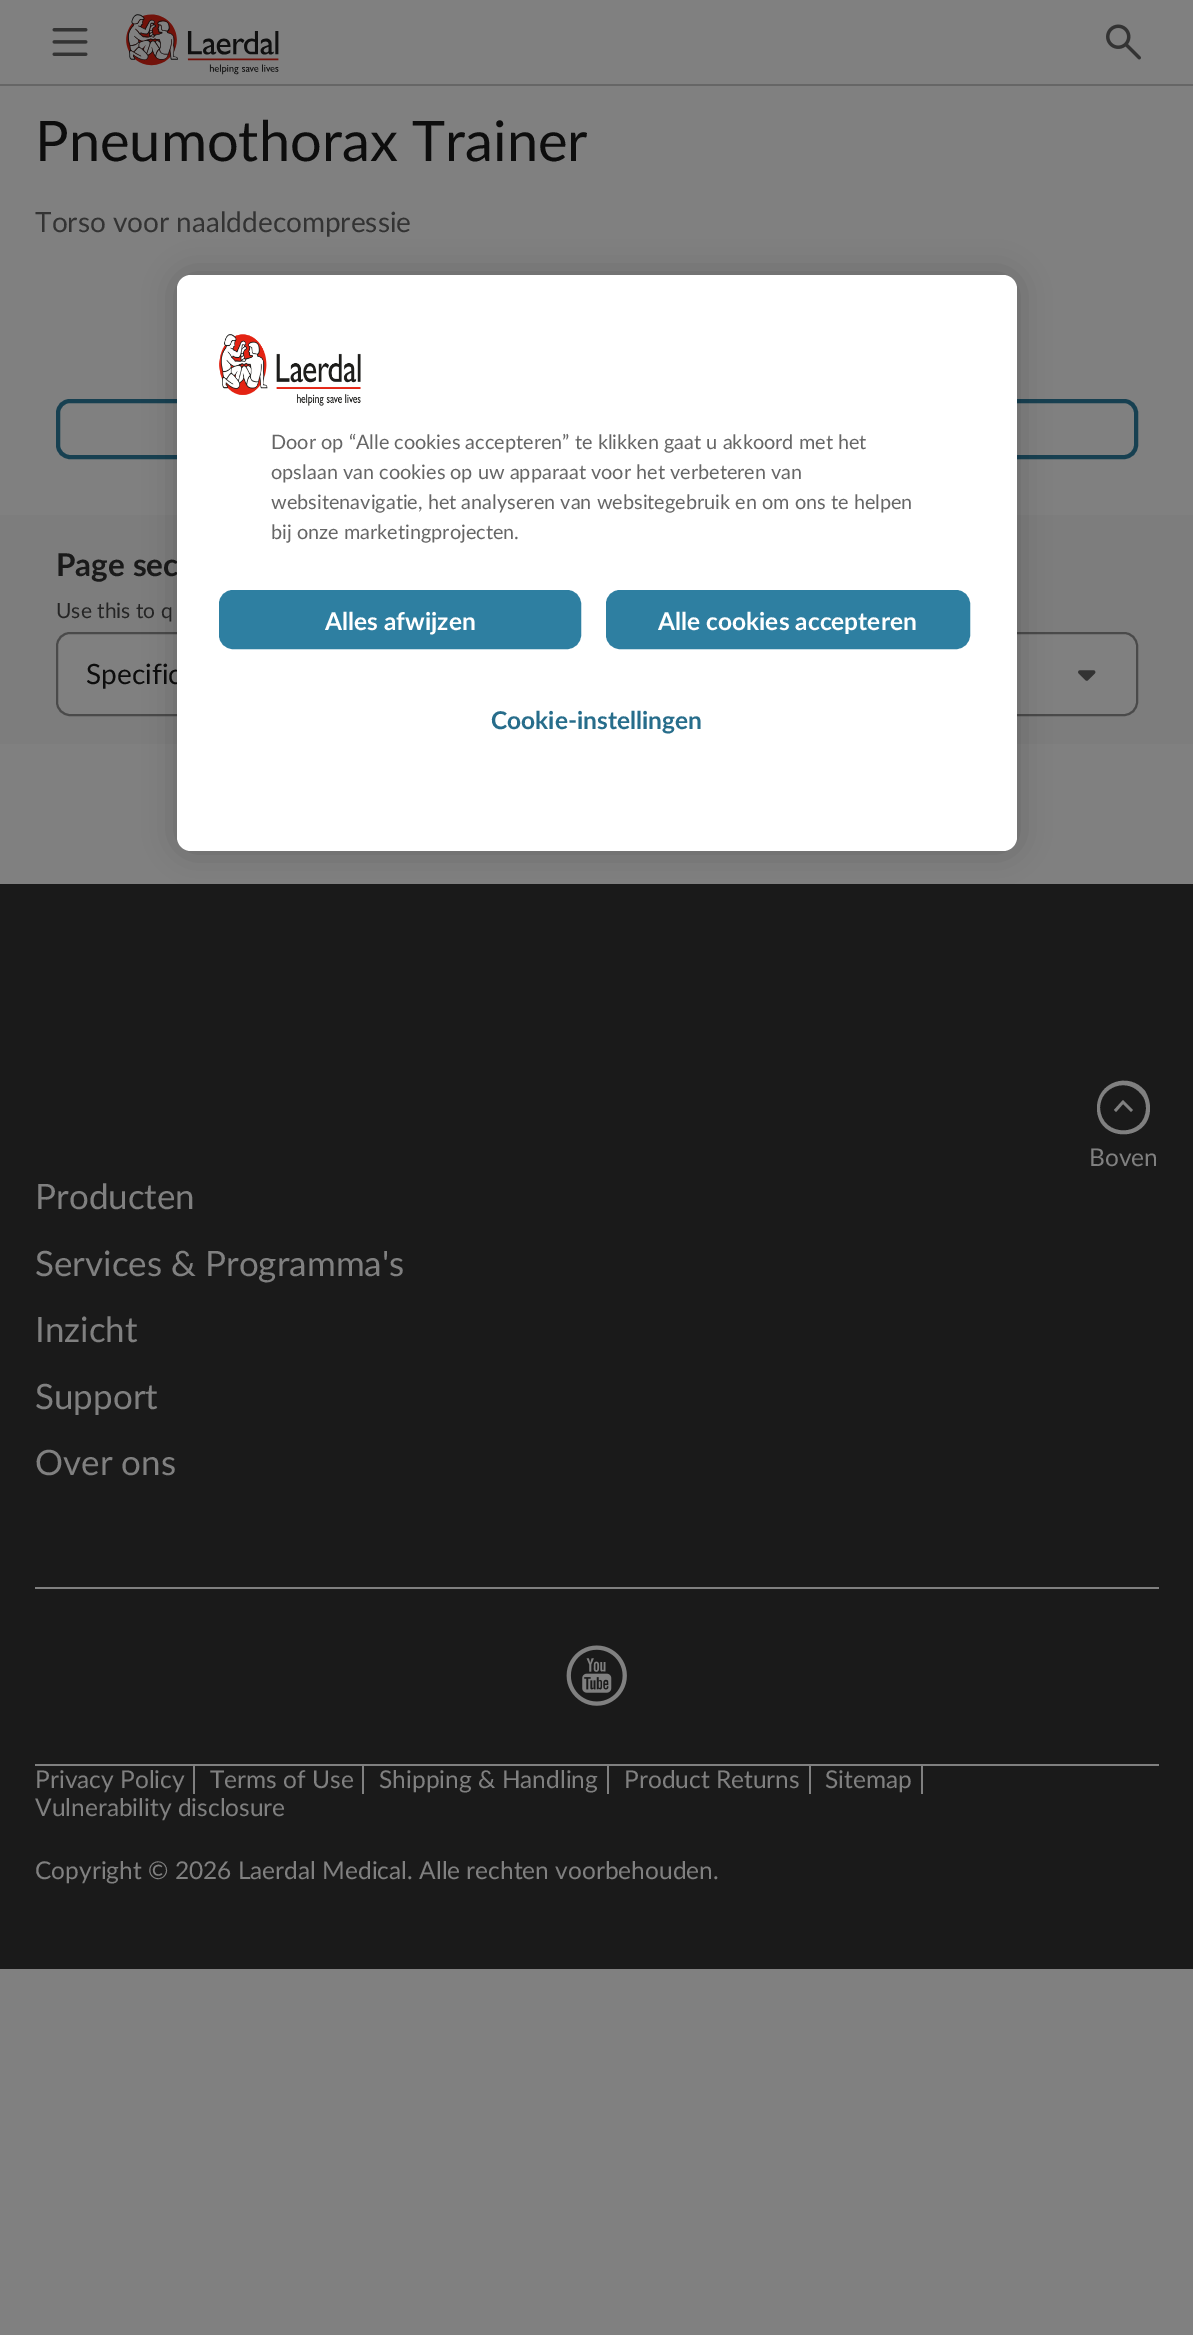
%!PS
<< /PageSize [1193 2335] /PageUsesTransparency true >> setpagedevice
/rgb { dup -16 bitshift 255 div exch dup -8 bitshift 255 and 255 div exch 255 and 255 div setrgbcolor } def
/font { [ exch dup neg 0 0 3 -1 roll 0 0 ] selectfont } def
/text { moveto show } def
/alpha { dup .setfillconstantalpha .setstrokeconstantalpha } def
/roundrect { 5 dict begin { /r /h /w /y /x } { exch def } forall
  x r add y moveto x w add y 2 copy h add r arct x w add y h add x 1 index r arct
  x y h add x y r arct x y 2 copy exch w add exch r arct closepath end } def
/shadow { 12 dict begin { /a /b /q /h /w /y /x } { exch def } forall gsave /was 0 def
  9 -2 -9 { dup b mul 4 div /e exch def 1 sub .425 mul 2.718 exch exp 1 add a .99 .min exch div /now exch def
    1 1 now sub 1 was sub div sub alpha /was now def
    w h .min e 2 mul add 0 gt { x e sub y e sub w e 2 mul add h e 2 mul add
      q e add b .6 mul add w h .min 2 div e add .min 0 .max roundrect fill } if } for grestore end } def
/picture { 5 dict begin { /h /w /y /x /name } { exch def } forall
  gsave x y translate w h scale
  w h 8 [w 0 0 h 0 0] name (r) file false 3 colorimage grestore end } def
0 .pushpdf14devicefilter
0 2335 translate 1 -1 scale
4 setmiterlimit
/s1 { /Lato-Regular 56 font 16#0D0D0D rgb } def
/s2 { /Lato-Regular 28 font 16#333333 rgb } def
/s3 { /Lato-Bold 31.5 font 16#1A1A1A rgb } def
/s4 { /Lato-Regular 21 font 16#252525 rgb } def
/s5 { /Lato-Regular 28 font 16#0D0D0D rgb } def
/s6 { /Lato-Regular 24.5 font 16#808080 rgb } def
/s7 { /Lato-Regular 35 font 16#808080 rgb } def
/s8 { /Lato-Regular 19.9 font 16#666666 rgb } def
/s9 { /Lato-Bold 24.5 font 16#FFFFFF rgb } def
/s10 { /Lato-Bold 24.5 font 16#276D8B rgb } def
16#808080 rgb
0 0 1193 2335 rectfill
16#666666 rgb
0 84 1193 2 rectfill
(pic1.raw) 52 28 36 28 picture
(pic2.raw) 126 14 153 61 picture
(pic3.raw) 1106 24 35 36 picture
s1
(Pneumothorax Trainer) 35 161 text
s2
(Torso voor naalddecompressie) 35 232 text
16#174051 rgb
4 setlinewidth
58 401 1078 56 12 roundrect stroke
16#7D7D7D rgb
0 515 1193 229 rectfill
s3
(Page sec) 56 576 text
s4
(Use this to q) 56 618 text
16#808080 rgb
57 633 1080 82 13 roundrect gsave fill grestore
16#4A4A4A rgb
2 setlinewidth
stroke
s5
(Specific) 86 684 text
(pic4.raw) 1078 670 18 11 picture
16#1A1A1A rgb
0 884 1193 1085 rectfill
16#808080 rgb
35 1587 1124 2 rectfill
1097 1108 moveto 1097 1143 1150 1143 1150 1108 curveto 1150 1102 1148 1096 1145 1091 curveto 1129 1071 1097 1082 1097 1108 curveto closepath 1146 1108 moveto 1146 1138 1101 1138 1100 1108 curveto 1100 1086 1128 1077 1141 1094 curveto 1145 1098 1146 1103 1146 1108 curveto closepath 1114 1110 moveto 1116 1112 lineto 1123 1104 lineto 1131 1112 lineto 1133 1110 lineto 1123 1100 lineto closepath fill
s6
(Boven) 1089 1166 text
s7
(Producten) 35 1209 text
(Services & Programma's) 35 1276 text
(Inzicht) 35 1342 text
(Support) 35 1409 text
(Over ons) 35 1475 text
35 1764 1124 2 rectfill
(pic5.raw) 566 1645 61 61 picture
193 1766 2 28 rectfill
s6
(Privacy Policy) 35 1788 text
362 1766 2 28 rectfill
(Terms of Use) 210 1788 text
607 1766 2 28 rectfill
(Shipping & Handling) 379 1788 text
809 1766 2 28 rectfill
(Product Returns) 624 1788 text
921 1766 2 28 rectfill
(Sitemap) 825 1788 text
(Vulnerability disclosure) 35 1816 text
(Copyright © 2026 Laerdal Medical. Alle rechten voorbehouden.) 35 1879 text
16#000000 rgb
177 275 840 576 14 16 0.2 shadow
16#FFFFFF rgb
177 275 840 576 14 roundrect fill
(pic6.raw) 219 334 142 72 picture
s8
(Door op “Alle cookies accepteren” te klikken gaat u akkoord met het) 271 449 text
(opslaan van cookies op uw apparaat voor het verbeteren van) 271 479 text
(websitenavigatie, het analyseren van websitegebruik en om ons te helpen) 271 509 text
(bij onze marketingprojecten.) 271 539 text
16#2E7FA1 rgb
220 591 360 57 13 roundrect gsave fill grestore
stroke
s9
(Alles afwijzen) 325 630 text
16#2E7FA1 rgb
607 591 362 57 13 roundrect gsave fill grestore
stroke
s9
(Alle cookies accepteren) 658 630 text
s10
(Cookie-instellingen) 491 729 text
.poppdf14devicefilter showpage
